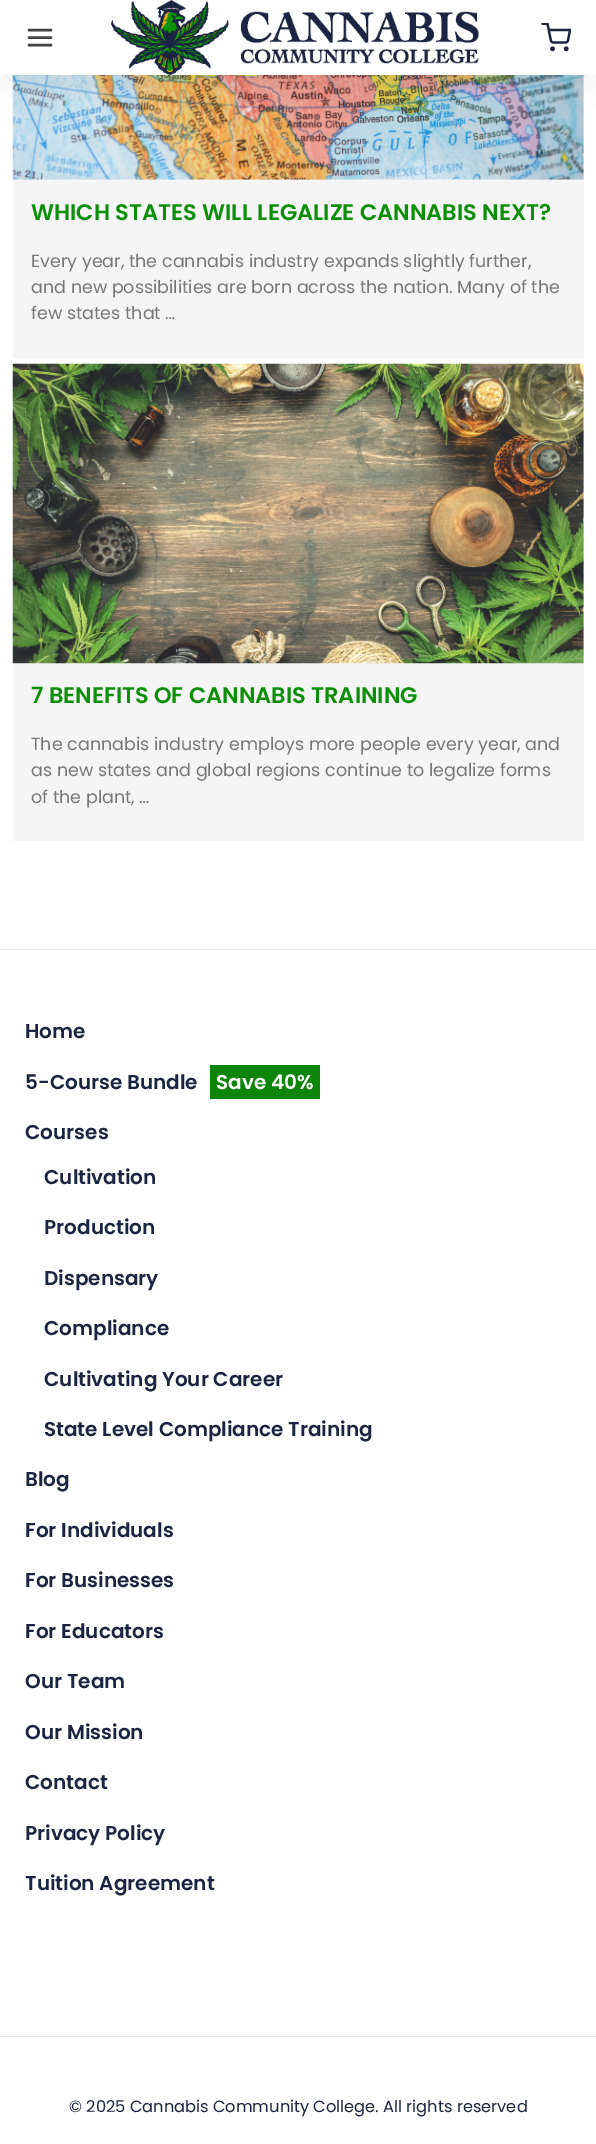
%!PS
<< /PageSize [596 2144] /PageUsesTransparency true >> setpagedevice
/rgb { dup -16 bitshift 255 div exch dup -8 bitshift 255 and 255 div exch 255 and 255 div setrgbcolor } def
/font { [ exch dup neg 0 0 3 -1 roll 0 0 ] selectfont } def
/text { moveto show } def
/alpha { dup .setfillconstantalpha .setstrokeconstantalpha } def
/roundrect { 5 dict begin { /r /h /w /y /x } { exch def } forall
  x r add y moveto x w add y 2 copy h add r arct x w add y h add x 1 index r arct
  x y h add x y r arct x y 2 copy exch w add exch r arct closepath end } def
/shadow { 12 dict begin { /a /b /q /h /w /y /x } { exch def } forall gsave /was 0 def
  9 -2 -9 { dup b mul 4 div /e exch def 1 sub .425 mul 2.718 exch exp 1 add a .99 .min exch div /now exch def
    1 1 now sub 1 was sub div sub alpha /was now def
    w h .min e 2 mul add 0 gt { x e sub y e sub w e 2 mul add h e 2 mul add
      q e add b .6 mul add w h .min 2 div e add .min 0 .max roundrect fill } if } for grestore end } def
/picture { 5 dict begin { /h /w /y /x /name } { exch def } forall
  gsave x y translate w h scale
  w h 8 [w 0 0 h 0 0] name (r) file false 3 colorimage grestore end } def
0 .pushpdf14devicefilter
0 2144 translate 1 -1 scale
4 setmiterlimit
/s1 { /Poppins-SemiBold 22.5 font 16#0D8F09 rgb } def
/s2 { /Poppins-Regular 17.5 font 16#777777 rgb } def
/s3 { /Poppins-SemiBold 20 font 16#1B2440 rgb } def
/s4 { /Poppins-SemiBold 20 font 16#FFFFFF rgb } def
/s5 { /Poppins-Regular 16.25 font 16#1B2440 rgb } def
16#FFFFFF rgb
0 0 596 2144 rectfill
16#F5F5F5 rgb
13 75 571 283 rectfill
(pic3.raw) 12 75 572 105 picture
16#000000 rgb
23 28 546 25 0 28 0.3 shadow
16#FFFFFF rgb
0 0 596 75 rectfill
16#444444 rgb
2.5 setlinewidth
1 setlinecap
1 setlinejoin
29 37.5 moveto 51 37.5 lineto 29 30 moveto 51 30 lineto 29 45 moveto 51 45 lineto stroke
(pic1.raw) 111 0 368 75 picture
(pic2.raw) 541 23 30 29 picture
s1
(WHICH STATES WILL LEGALIZE CANNABIS NEXT?) 31 220 text
s2
(Every year, the cannabis industry expands slightly further,) 31 267 text
(and new possibilities are born across the nation. Many of the) 31 293 text
(few states that …) 31 319 text
16#F5F5F5 rgb
13 364 571 477 rectfill
(pic4.raw) 12 363 572 301 picture
s1
(7 BENEFITS OF CANNABIS TRAINING) 31 703 text
s2
(The cannabis industry employs more people every year, and) 31 750 text
(as new states and global regions continue to legalize forms) 31 776 text
(of the plant, …) 31 803 text
16#E6E6E6 rgb
0 949 596 1 rectfill
s3
(Home) 25 1038 text
(5-Course Bundle) 25 1089 text
16#0D8509 rgb
210 1065 110 34 rectfill
s4
(Save 40%) 216 1089 text
s3
(Courses) 25 1139 text
(Cultivation) 44 1184 text
(Production) 44 1234 text
(Dispensary) 44 1285 text
(Compliance) 44 1335 text
(Cultivating Your Career) 44 1386 text
(State Level Compliance Training) 44 1436 text
(Blog) 25 1486 text
(For Individuals) 25 1537 text
(For Businesses) 25 1587 text
(For Educators) 25 1638 text
(Our Team) 25 1688 text
(Our Mission) 25 1739 text
(Contact) 25 1789 text
(Privacy Policy) 25 1840 text
(Tuition Agreement) 25 1890 text
16#E6E6E6 rgb
0 2036 596 1 rectfill
s5
(© 2025 Cannabis Community College. All rights reserved) 69 2112 text
.poppdf14devicefilter showpage
